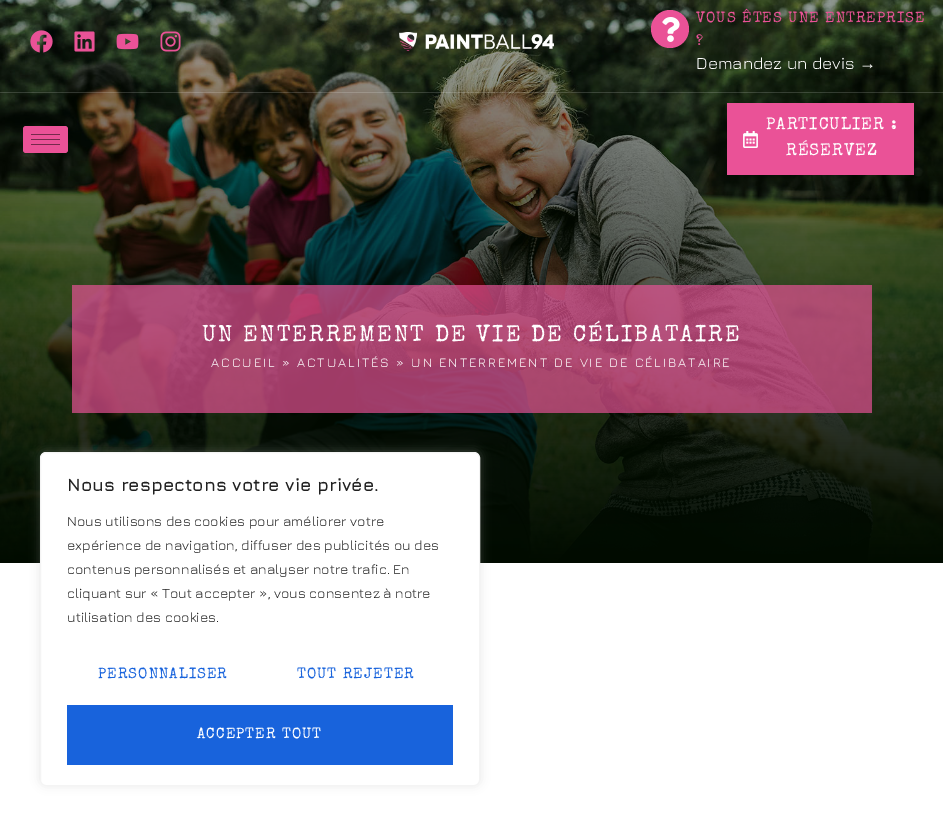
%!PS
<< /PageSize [943 826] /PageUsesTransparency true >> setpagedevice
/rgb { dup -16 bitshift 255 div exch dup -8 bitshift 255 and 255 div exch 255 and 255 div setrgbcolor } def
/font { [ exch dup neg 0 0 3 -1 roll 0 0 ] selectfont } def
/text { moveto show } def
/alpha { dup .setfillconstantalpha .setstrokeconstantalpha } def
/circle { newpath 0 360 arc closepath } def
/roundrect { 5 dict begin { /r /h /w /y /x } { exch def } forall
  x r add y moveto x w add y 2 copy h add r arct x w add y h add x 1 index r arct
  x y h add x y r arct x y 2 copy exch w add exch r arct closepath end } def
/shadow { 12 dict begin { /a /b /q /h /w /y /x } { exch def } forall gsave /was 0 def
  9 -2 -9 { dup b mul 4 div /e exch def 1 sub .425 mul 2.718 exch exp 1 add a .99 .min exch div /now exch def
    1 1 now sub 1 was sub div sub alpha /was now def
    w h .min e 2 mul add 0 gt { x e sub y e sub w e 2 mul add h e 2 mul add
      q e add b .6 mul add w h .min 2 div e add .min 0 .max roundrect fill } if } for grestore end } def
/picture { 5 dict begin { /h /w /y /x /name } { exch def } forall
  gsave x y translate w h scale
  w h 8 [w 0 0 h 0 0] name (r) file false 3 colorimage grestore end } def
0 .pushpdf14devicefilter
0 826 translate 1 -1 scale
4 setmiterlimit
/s1 { /Jura-Regular 17 font 16#FFFFFF rgb } def
/s2 { /LiberationSans-Regular 17 font 16#FFFFFF rgb } def
/s3 { /Jura-Bold 18 font 16#212121 rgb } def
/s4 { /Jura-Regular 14 font 16#212121 rgb } def
16#FFFFFF rgb
0 0 943 826 rectfill
(pic8.raw) 0 0 943 563 picture
0.16 alpha
0 92 943 1 rectfill
1 alpha
(pic1.raw) 30 30 23 23 picture
(pic2.raw) 74 31 21 21 picture
(pic3.raw) 116 33 23 17 picture
(pic4.raw) 160 31 21 21 picture
(pic5.raw) 399 32 155 19 picture
16#EA5297 rgb
670 29 19 circle fill
(pic6.raw) 662 17 18 25 picture
/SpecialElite-Regular 15 font
696 22 moveto 1 0 (VOUS ÊTES UNE ENTREPRISE) ashow
696 45 moveto 1 0 (?) ashow
s1
(Demandez un devis) 696 69 text
s2
(→) 859 69 text
16#EA5297 rgb
23 126 45 27 3 roundrect fill
16#75294C rgb
31 134 29 1 rectfill
31 139 29 1 rectfill
31 144 29 1 rectfill
16#EA5297 rgb
727 103 187 72 rectfill
(pic7.raw) 743 131 15 17 picture
/SpecialElite-Regular 17 font
16#FFFFFF rgb
766 129 moveto 0.9 0 (PARTICULIER :) ashow
786 155 moveto 0.9 0 (RÉSERVEZ) ashow
0.68 alpha
16#EA5297 rgb
72 285 800 128 rectfill
/SpecialElite-Regular 23 font
1 alpha
16#FFFFFF rgb
202 341 moveto 2 0 (UN ENTERREMENT DE VIE DE CÉLIBATAIRE) ashow
/Jura-Regular 13 font
211 367 moveto 2 0 (ACCUEIL » ACTUALITÉS » UN ENTERREMENT DE VIE DE CÉLIBATAIRE) ashow
16#ACABAB rgb
40 451 440 334 6 5 0.3 shadow
16#FFFFFF rgb
40.5 452.5 439 333 5.5 roundrect gsave fill grestore
16#F4F4F4 rgb
stroke
s3
(Nous respectons votre vie privée.) 67 491 text
s4
(Nous utilisons des cookies pour améliorer votre) 67 526 text
(expérience de navigation, diffuser des publicités ou des) 67 550 text
(contenus personnalisés et analyser notre trafic. En) 67 574 text
(cliquant sur « Tout accepter », vous consentez à notre) 67 598 text
(utilisation des cookies.) 67 622 text
/SpecialElite-Regular 15 font
16#1863DC rgb
98 678 moveto 1 0 (PERSONNALISER) ashow
297 678 moveto 1 0 (TOUT REJETER) ashow
67 705 386 60 rectfill
16#FFFFFF rgb
197 738 moveto 1 0 (ACCEPTER TOUT) ashow
.poppdf14devicefilter showpage
